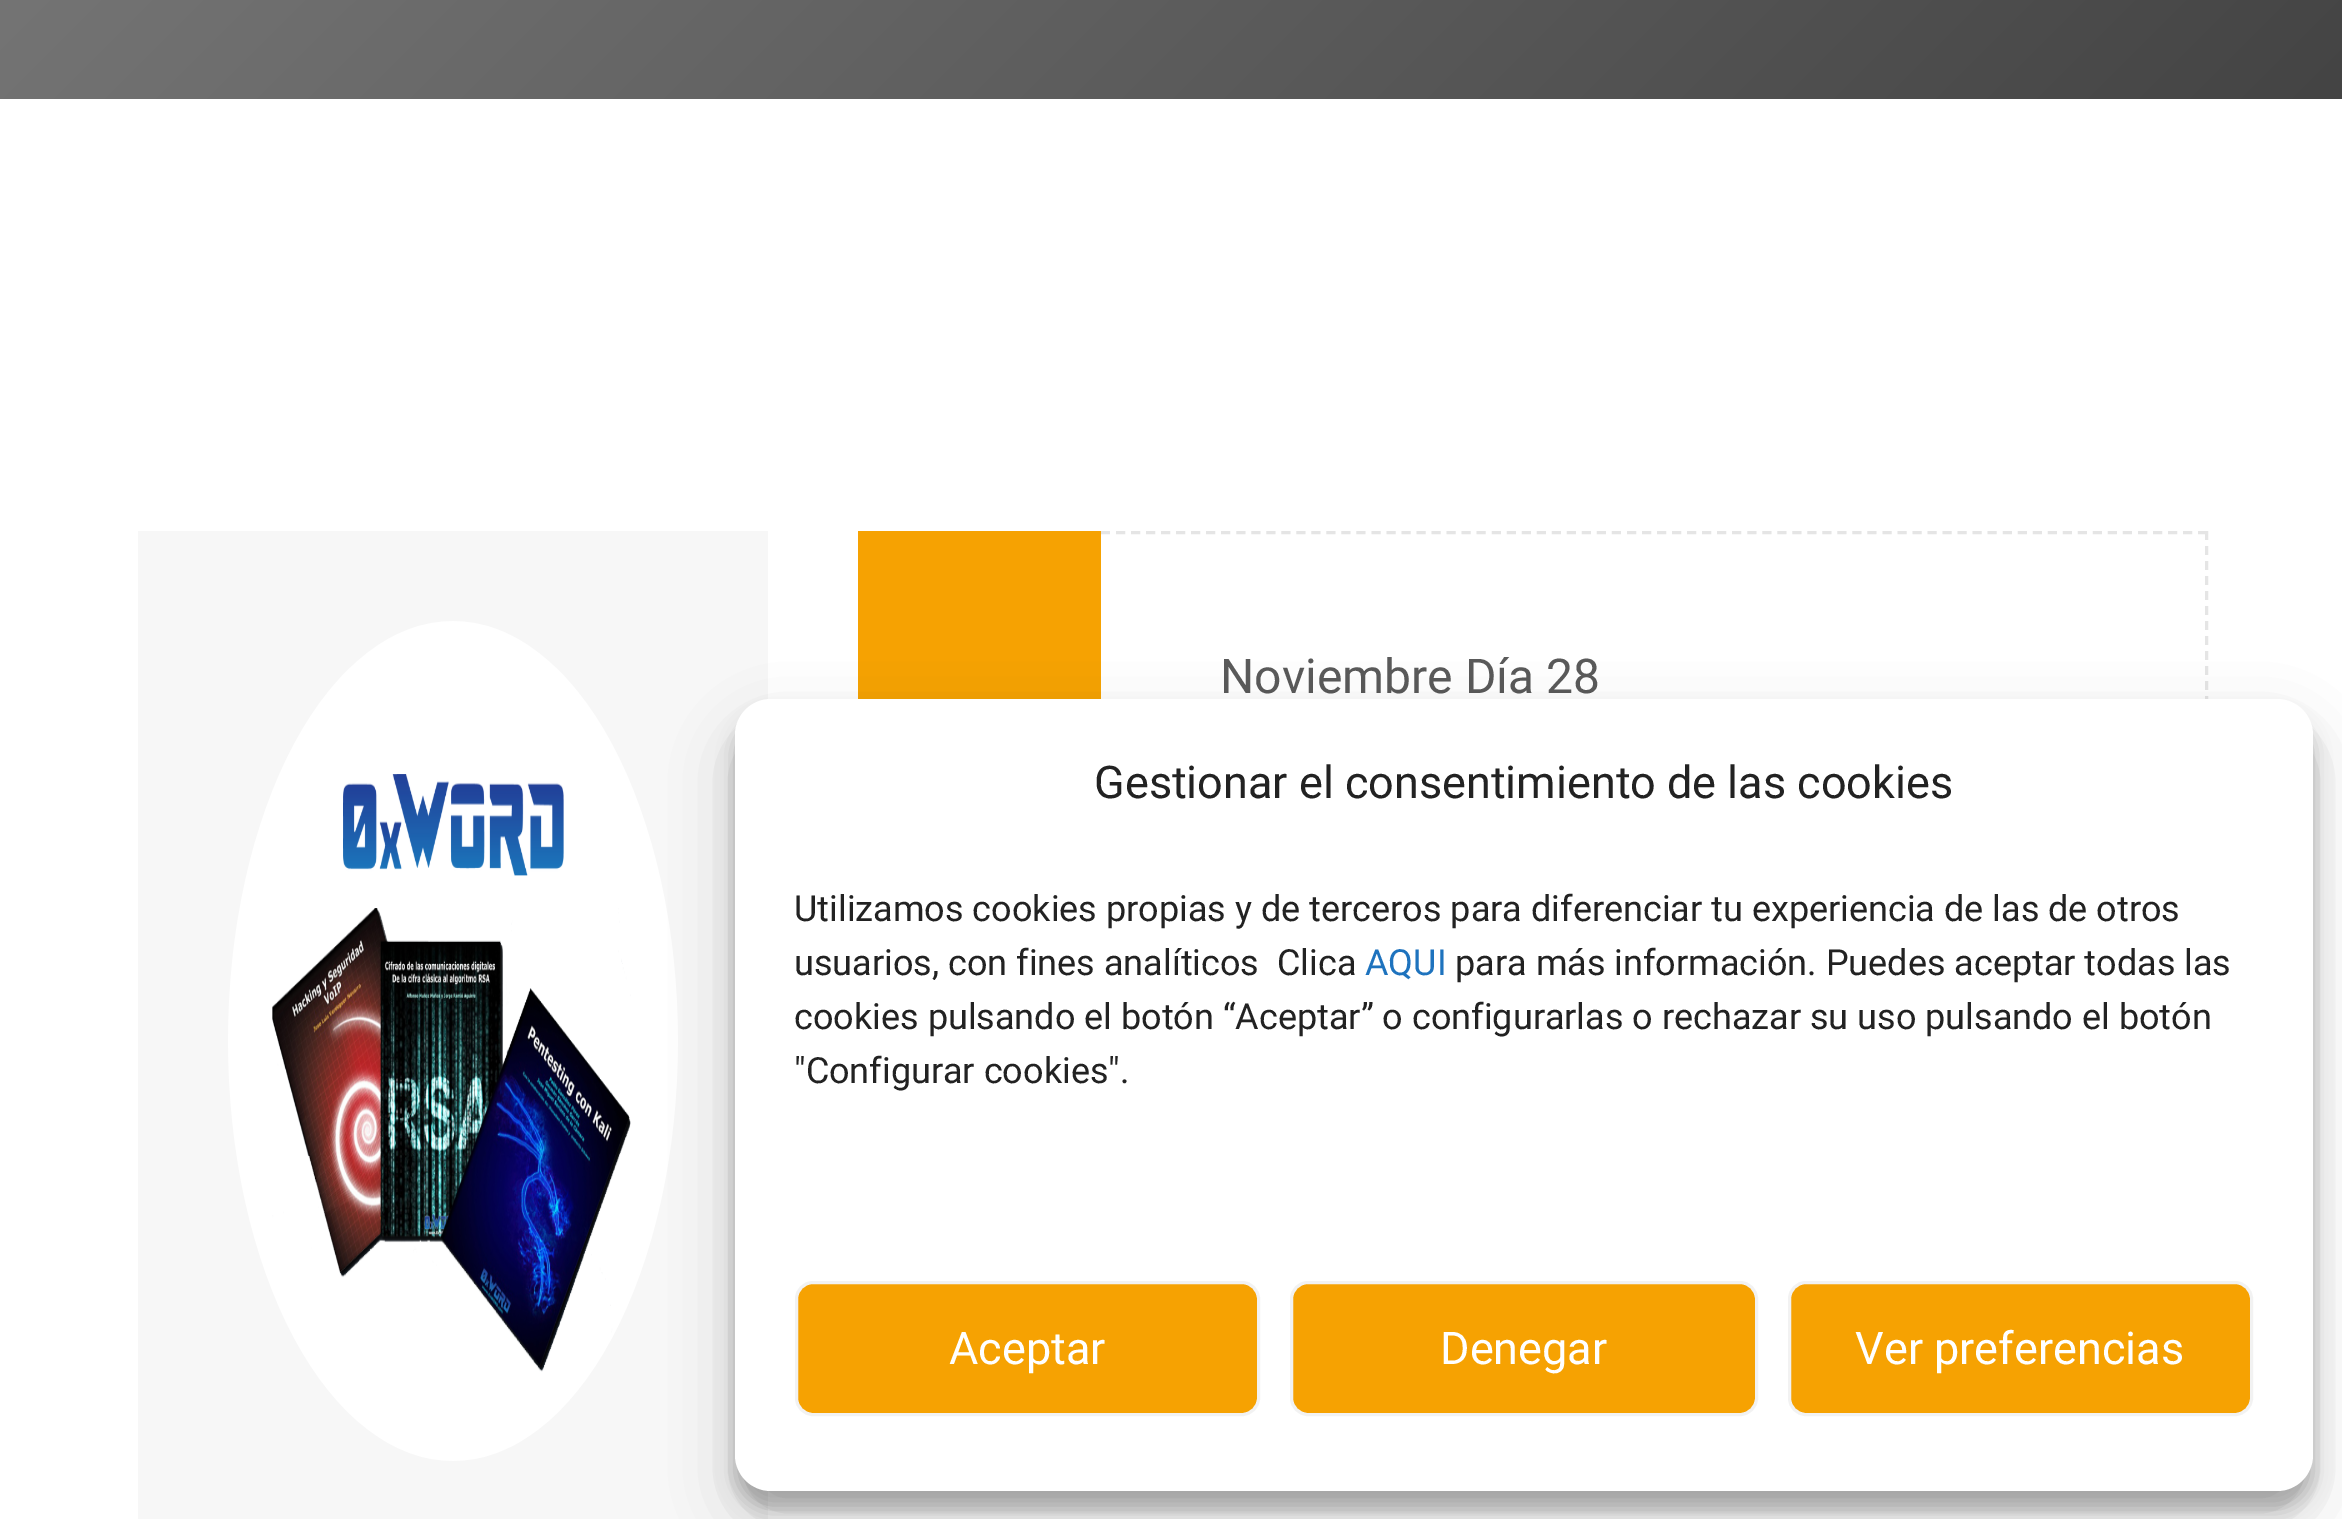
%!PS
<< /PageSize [2342 1519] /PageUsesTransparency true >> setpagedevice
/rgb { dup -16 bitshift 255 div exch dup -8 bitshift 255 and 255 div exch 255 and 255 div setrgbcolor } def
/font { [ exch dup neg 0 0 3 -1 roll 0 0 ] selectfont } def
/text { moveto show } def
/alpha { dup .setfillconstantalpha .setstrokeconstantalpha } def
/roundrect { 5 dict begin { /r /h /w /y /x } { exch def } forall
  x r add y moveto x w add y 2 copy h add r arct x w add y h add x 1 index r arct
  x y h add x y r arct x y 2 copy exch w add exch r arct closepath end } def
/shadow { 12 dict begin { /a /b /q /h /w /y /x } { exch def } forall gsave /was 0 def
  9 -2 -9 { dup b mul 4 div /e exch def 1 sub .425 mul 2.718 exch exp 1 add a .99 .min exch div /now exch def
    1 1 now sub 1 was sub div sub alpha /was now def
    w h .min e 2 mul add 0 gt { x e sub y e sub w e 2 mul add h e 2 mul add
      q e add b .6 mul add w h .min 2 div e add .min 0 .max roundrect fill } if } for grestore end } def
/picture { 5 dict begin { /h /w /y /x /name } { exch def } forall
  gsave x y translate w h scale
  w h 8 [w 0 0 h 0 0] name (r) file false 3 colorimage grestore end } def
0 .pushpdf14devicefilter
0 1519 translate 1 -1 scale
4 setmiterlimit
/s1 { /Roboto-Regular 48 font 16#5A5A5A rgb } def
/s2 { /Roboto-Regular 45 font 16#222222 rgb } def
/s3 { /Roboto-Regular 36 font 16#222222 rgb } def
/s4 { /Roboto-Regular 36 font 16#1E73BE rgb } def
/s5 { /Roboto-Regular 45 font 16#FFFFFF rgb } def
16#FFFFFF rgb
0 0 2342 1519 rectfill
gsave 0 0 moveto 2342 0 lineto 2342 99 lineto 0 99 lineto closepath clip newpath
<< /ShadingType 2 /ColorSpace /DeviceRGB /Coords [286 -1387 2057 385] /Extend [true true] /Function << /FunctionType 2 /Domain [0 1] /C0 [0.537 0.537 0.537] /C1 [0.267 0.267 0.267] /N 1 >> >> shfill grestore
16#F7F7F7 rgb
138 531 630 988 rectfill
(pic1.raw) 228 621 450 840 picture
16#F6A202 rgb
858 531 243 168 rectfill
16#E5E5E5 rgb
3 setlinewidth
[9 6.03] 0 setdash
1101 532.5 moveto 2208 532.5 lineto stroke
[9 6] 0 setdash
2206.5 531 moveto 2206.5 1125 lineto stroke
s1
(Noviembre Día 28) 1220 693 text
16#000000 rgb
735 717 1578 792 36 9 0.23 shadow
735 729 1578 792 36 30 0.19 shadow
16#FFFFFF rgb
735 699 1578 792 36 roundrect fill
s2
(Gestionar el consentimiento de las cookies) 1094 798 text
s3
(Utilizamos cookies propias y de terceros para diferenciar tu experiencia de las de otros) 794 921 text
(usuarios, con fines analíticos  Clica) 794 975 text
s4
(AQUI) 1365 975 text
s3
(para más información. Puedes aceptar todas las) 1455 975 text
(cookies pulsando el botón “Aceptar” o configurarlas o rechazar su uso pulsando el botón) 794 1029 text
("Configurar cookies".) 794 1083 text
16#F6A202 rgb
796.5 1282.5 462 132 16.5 roundrect gsave fill grestore
16#F2F2F2 rgb
[] 0 setdash
stroke
s5
(Aceptar) 949 1364 text
16#F6A202 rgb
1291.5 1282.5 465 132 16.5 roundrect gsave fill grestore
16#F2F2F2 rgb
stroke
s5
(Denegar) 1440 1364 text
16#F6A202 rgb
1789.5 1282.5 462 132 16.5 roundrect gsave fill grestore
16#F2F2F2 rgb
stroke
s5
(Ver preferencias) 1855 1364 text
.poppdf14devicefilter showpage
